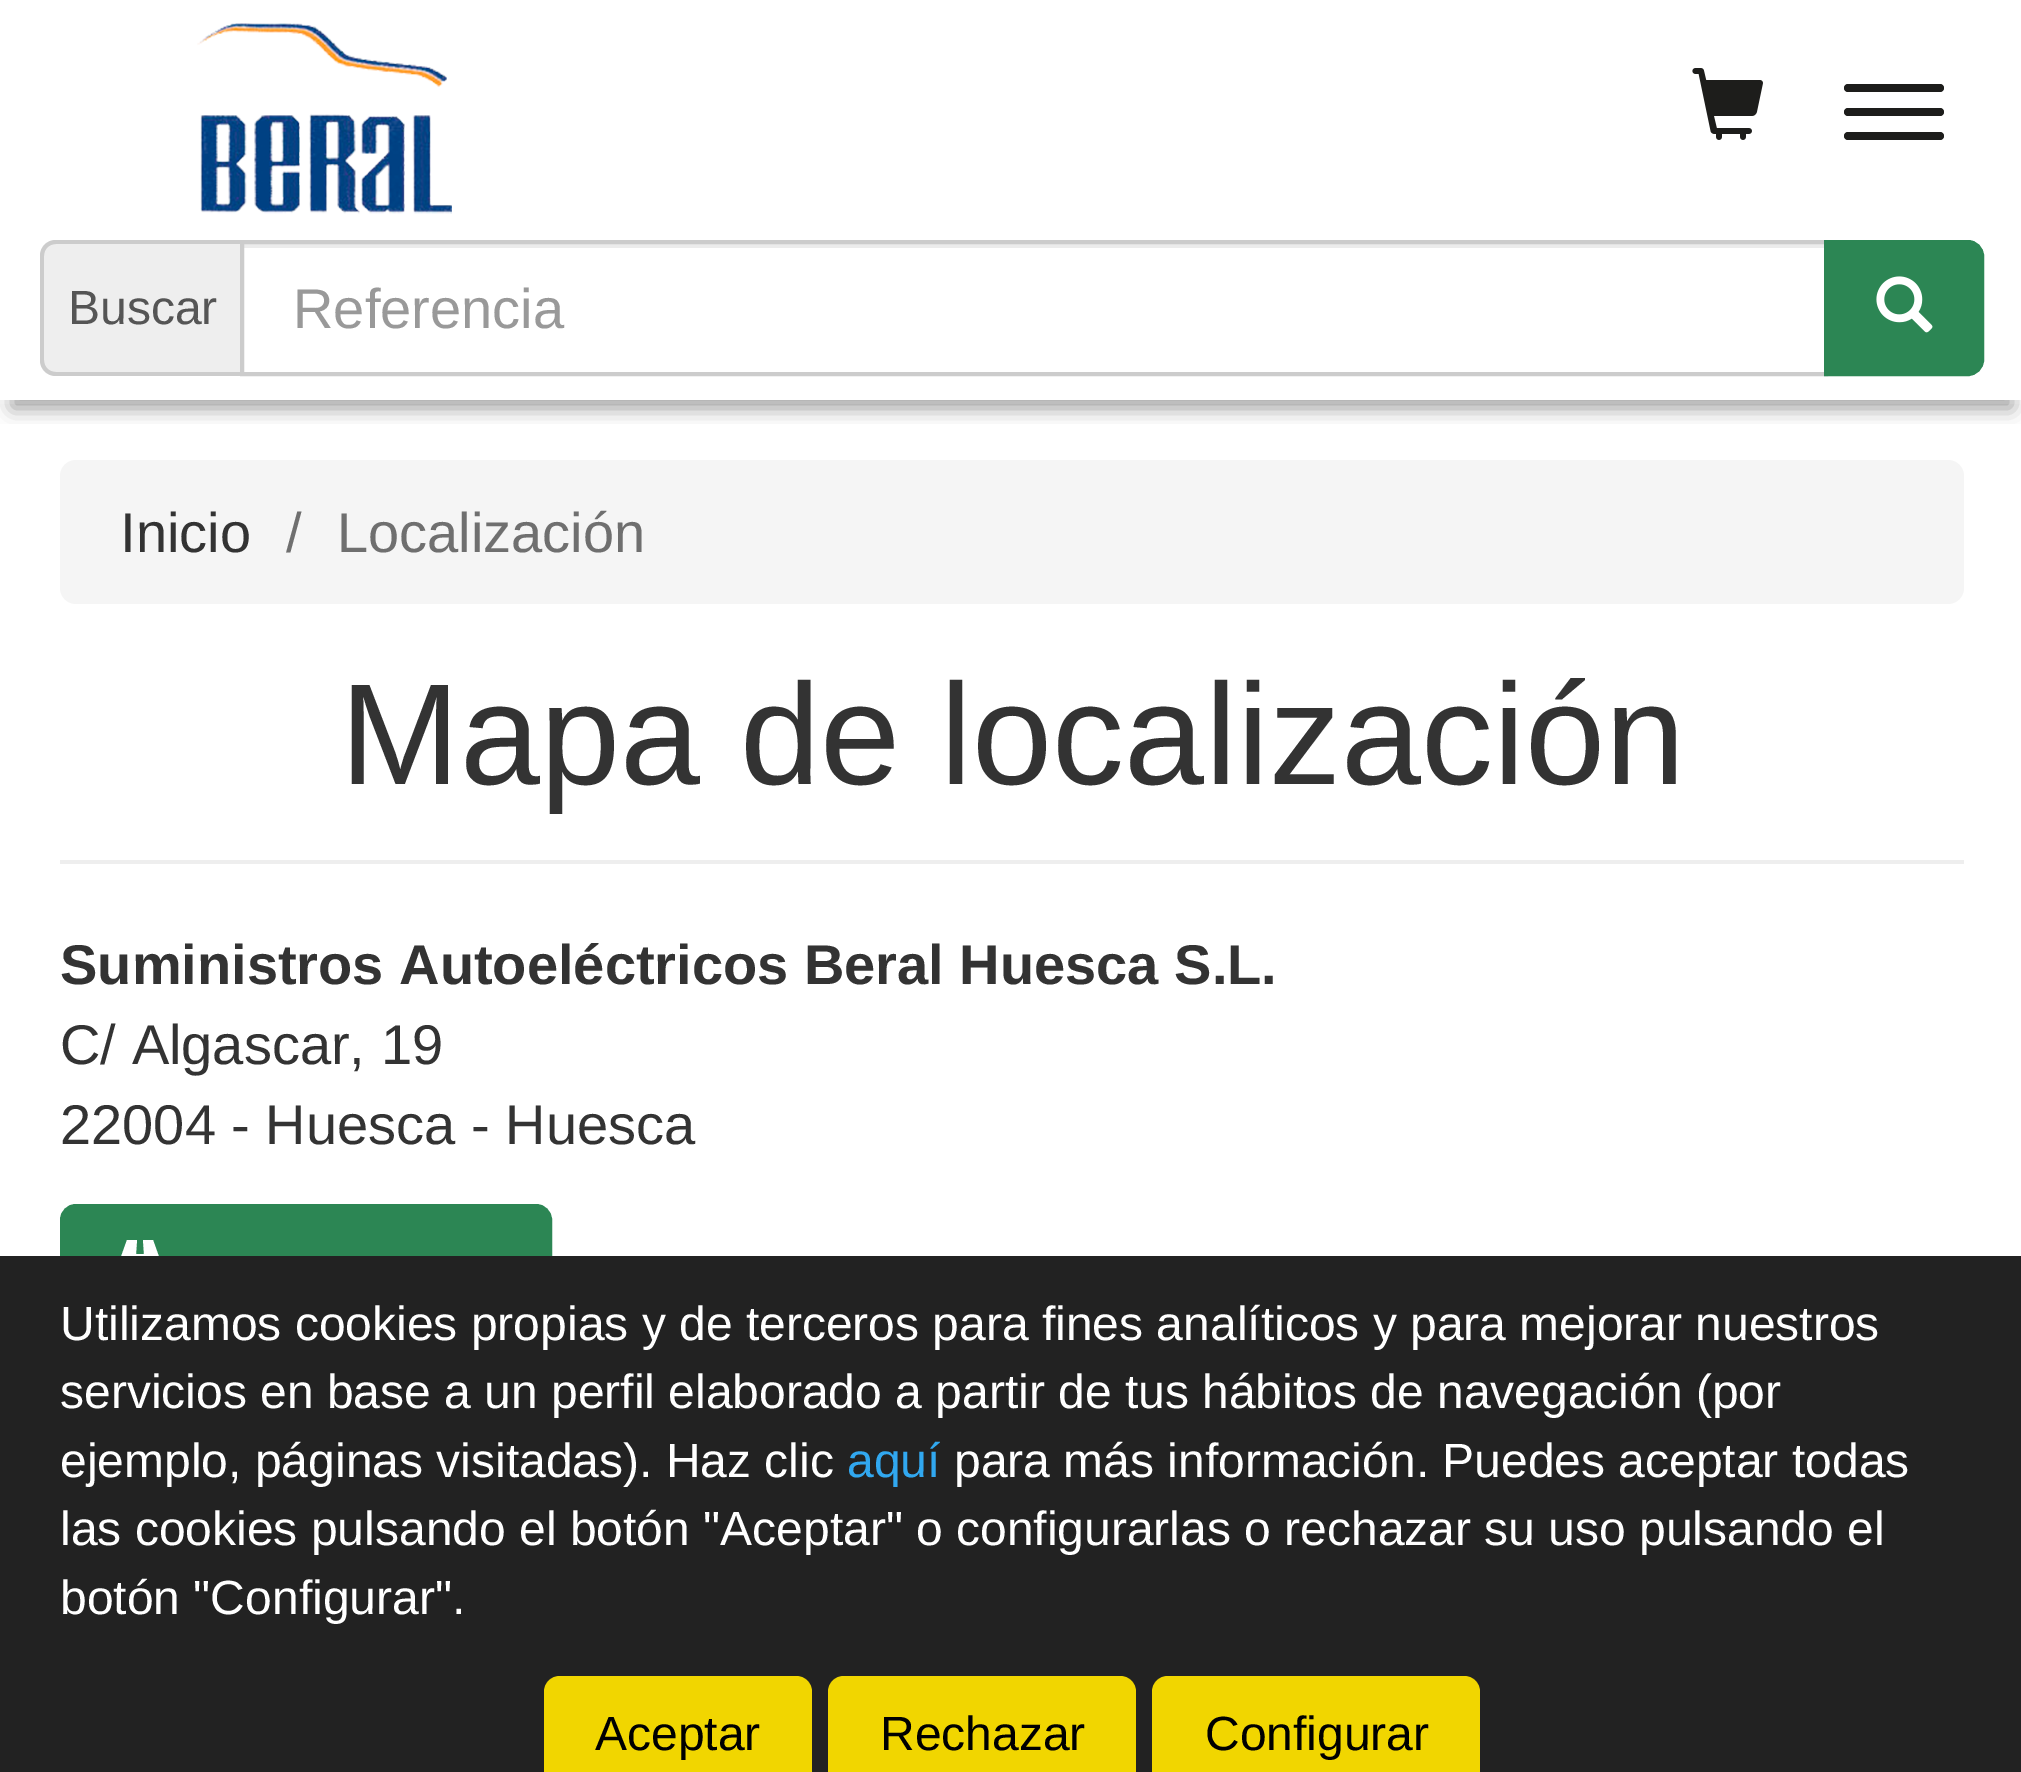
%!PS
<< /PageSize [2021 1772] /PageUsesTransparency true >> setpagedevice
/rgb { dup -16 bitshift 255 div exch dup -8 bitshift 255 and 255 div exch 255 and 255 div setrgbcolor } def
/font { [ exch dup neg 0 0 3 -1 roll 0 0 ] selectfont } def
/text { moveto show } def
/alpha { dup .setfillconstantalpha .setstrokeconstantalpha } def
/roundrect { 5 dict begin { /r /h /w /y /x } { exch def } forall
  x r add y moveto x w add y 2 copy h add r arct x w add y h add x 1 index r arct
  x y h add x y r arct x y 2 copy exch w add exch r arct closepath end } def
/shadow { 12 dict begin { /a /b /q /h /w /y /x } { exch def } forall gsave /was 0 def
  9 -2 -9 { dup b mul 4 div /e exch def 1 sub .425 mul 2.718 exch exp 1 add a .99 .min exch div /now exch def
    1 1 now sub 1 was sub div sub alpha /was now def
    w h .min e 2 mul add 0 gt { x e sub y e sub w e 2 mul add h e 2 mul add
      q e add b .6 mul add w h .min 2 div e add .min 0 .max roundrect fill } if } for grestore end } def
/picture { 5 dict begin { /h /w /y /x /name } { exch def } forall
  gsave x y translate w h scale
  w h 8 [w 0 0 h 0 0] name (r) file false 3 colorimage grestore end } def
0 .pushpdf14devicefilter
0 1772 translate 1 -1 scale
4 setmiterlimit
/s1 { /LiberationSans-Regular 48 font 16#555555 rgb } def
/s2 { /LiberationSans-Regular 56 font 16#999999 rgb } def
/s3 { /LiberationSans-Regular 56 font 16#333333 rgb } def
/s4 { /LiberationSans-Regular 56 font 16#6F6F6F rgb } def
/s5 { /LiberationSans-Regular 144 font 16#333333 rgb } def
/s6 { /LiberationSans-Bold 56 font 16#333333 rgb } def
/s7 { /LiberationSans-Regular 48 font 16#FFFFFF rgb } def
/s8 { /LiberationSans-Regular 48 font 16#31A8F0 rgb } def
/s9 { /LiberationSans-Regular 48 font 16#000000 rgb } def
16#FFFFFF rgb
0 0 2021 1772 rectfill
gsave
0 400 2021 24 rectclip
16#000000 rgb
12 32 2000 376 0 10 0.4 shadow
grestore
(pic1.raw) 197 23 255 191 picture
(pic2.raw) 1692 68 71 72 picture
16#1D1D1B rgb
1844 84 100 8 4 roundrect fill
1844 108 100 8 4 roundrect fill
1844 132 100 8 4 roundrect fill
0.1 alpha
16#FFFFFF rgb
0 400 2021 4 rectfill
1 alpha
16#EEEEEE rgb
56 240 moveto 240 240 lineto 240 376 lineto 56 376 lineto 47 376 40 369 40 360 curveto 40 256 lineto 40 247 47 240 56 240 curveto closepath fill
16#CCCCCC rgb
56 240 moveto 240 240 lineto 240 376 lineto 56 376 lineto 47 376 40 369 40 360 curveto 40 256 lineto 40 247 47 240 56 240 curveto closepath 56 244 moveto 240 244 lineto 240 372 lineto 56 372 lineto 49 372 44 367 44 360 curveto 44 256 lineto 44 249 49 244 56 244 curveto closepath eofill
s1
(Buscar) 68 324 text
16#ECECEC rgb
244 244 1580 4 rectfill
16#CCCCCC rgb
4 setlinewidth
242 242 1584 132 rectstroke
s2
(Referencia) 293 328 text
16#2C8654 rgb
1826 242 moveto 1968 242 lineto 1975.5 242 1982 248.5 1982 256 curveto 1982 360 lineto 1982 367.5 1975.5 374 1968 374 curveto 1826 374 lineto closepath gsave fill grestore
stroke
(pic3.raw) 1876 276 57 57 picture
16#F5F5F5 rgb
60 460 1904 144 16 roundrect fill
s3
(Inicio) 120 552 text
s4
(/) 286 552 text
(Localización) 337 552 text
16#EEEEEE rgb
60 860 1904 4 rectfill
s5
(Mapa de localización) 340 784 text
s6
(Suministros Autoeléctricos Beral Huesca S.L.) 60 984 text
s3
(C/ Algascar, 19) 60 1064 text
(22004 - Huesca - Huesca) 60 1144 text
16#2C8654 rgb
62 1206 488 132 14 roundrect gsave fill grestore
stroke
16#FFFFFF rgb
173 1296 moveto 148 1296 lineto 146 1277 lineto 134 1277 lineto 132 1296 lineto 107 1296 lineto 127 1240 lineto 137 1240 lineto 136 1254 lineto 144 1254 lineto 143 1240 lineto 153 1240 lineto closepath 136 1259 moveto 135 1273 lineto 145 1273 lineto 144 1259 lineto closepath fill
16#222222 rgb
0 1256 2021 516 rectfill
s7
(Utilizamos cookies propias y de terceros para fines analíticos y para mejorar nuestros) 60 1340 text
(servicios en base a un perfil elaborado a partir de tus hábitos de navegación \(por) 60 1408 text
(ejemplo, páginas visitadas\). Haz clic) 60 1477 text
s8
(aquí) 847 1477 text
s7
(para más información. Puedes aceptar todas) 954 1477 text
(las cookies pulsando el botón "Aceptar" o configurarlas o rechazar su uso pulsando el) 60 1545 text
(botón "Configurar".) 60 1614 text
16#F1D600 rgb
560 1676 moveto 796 1676 lineto 805 1676 812 1683 812 1692 curveto 812 1772 lineto 544 1772 lineto 544 1692 lineto 544 1683 551 1676 560 1676 curveto closepath fill
s9
(Aceptar) 595 1750 text
16#F1D600 rgb
844 1676 moveto 1120 1676 lineto 1129 1676 1136 1683 1136 1692 curveto 1136 1772 lineto 828 1772 lineto 828 1692 lineto 828 1683 835 1676 844 1676 curveto closepath fill
s9
(Rechazar) 880 1750 text
16#F1D600 rgb
1168 1676 moveto 1464 1676 lineto 1473 1676 1480 1683 1480 1692 curveto 1480 1772 lineto 1152 1772 lineto 1152 1692 lineto 1152 1683 1159 1676 1168 1676 curveto closepath fill
s9
(Configurar) 1205 1750 text
.poppdf14devicefilter showpage
